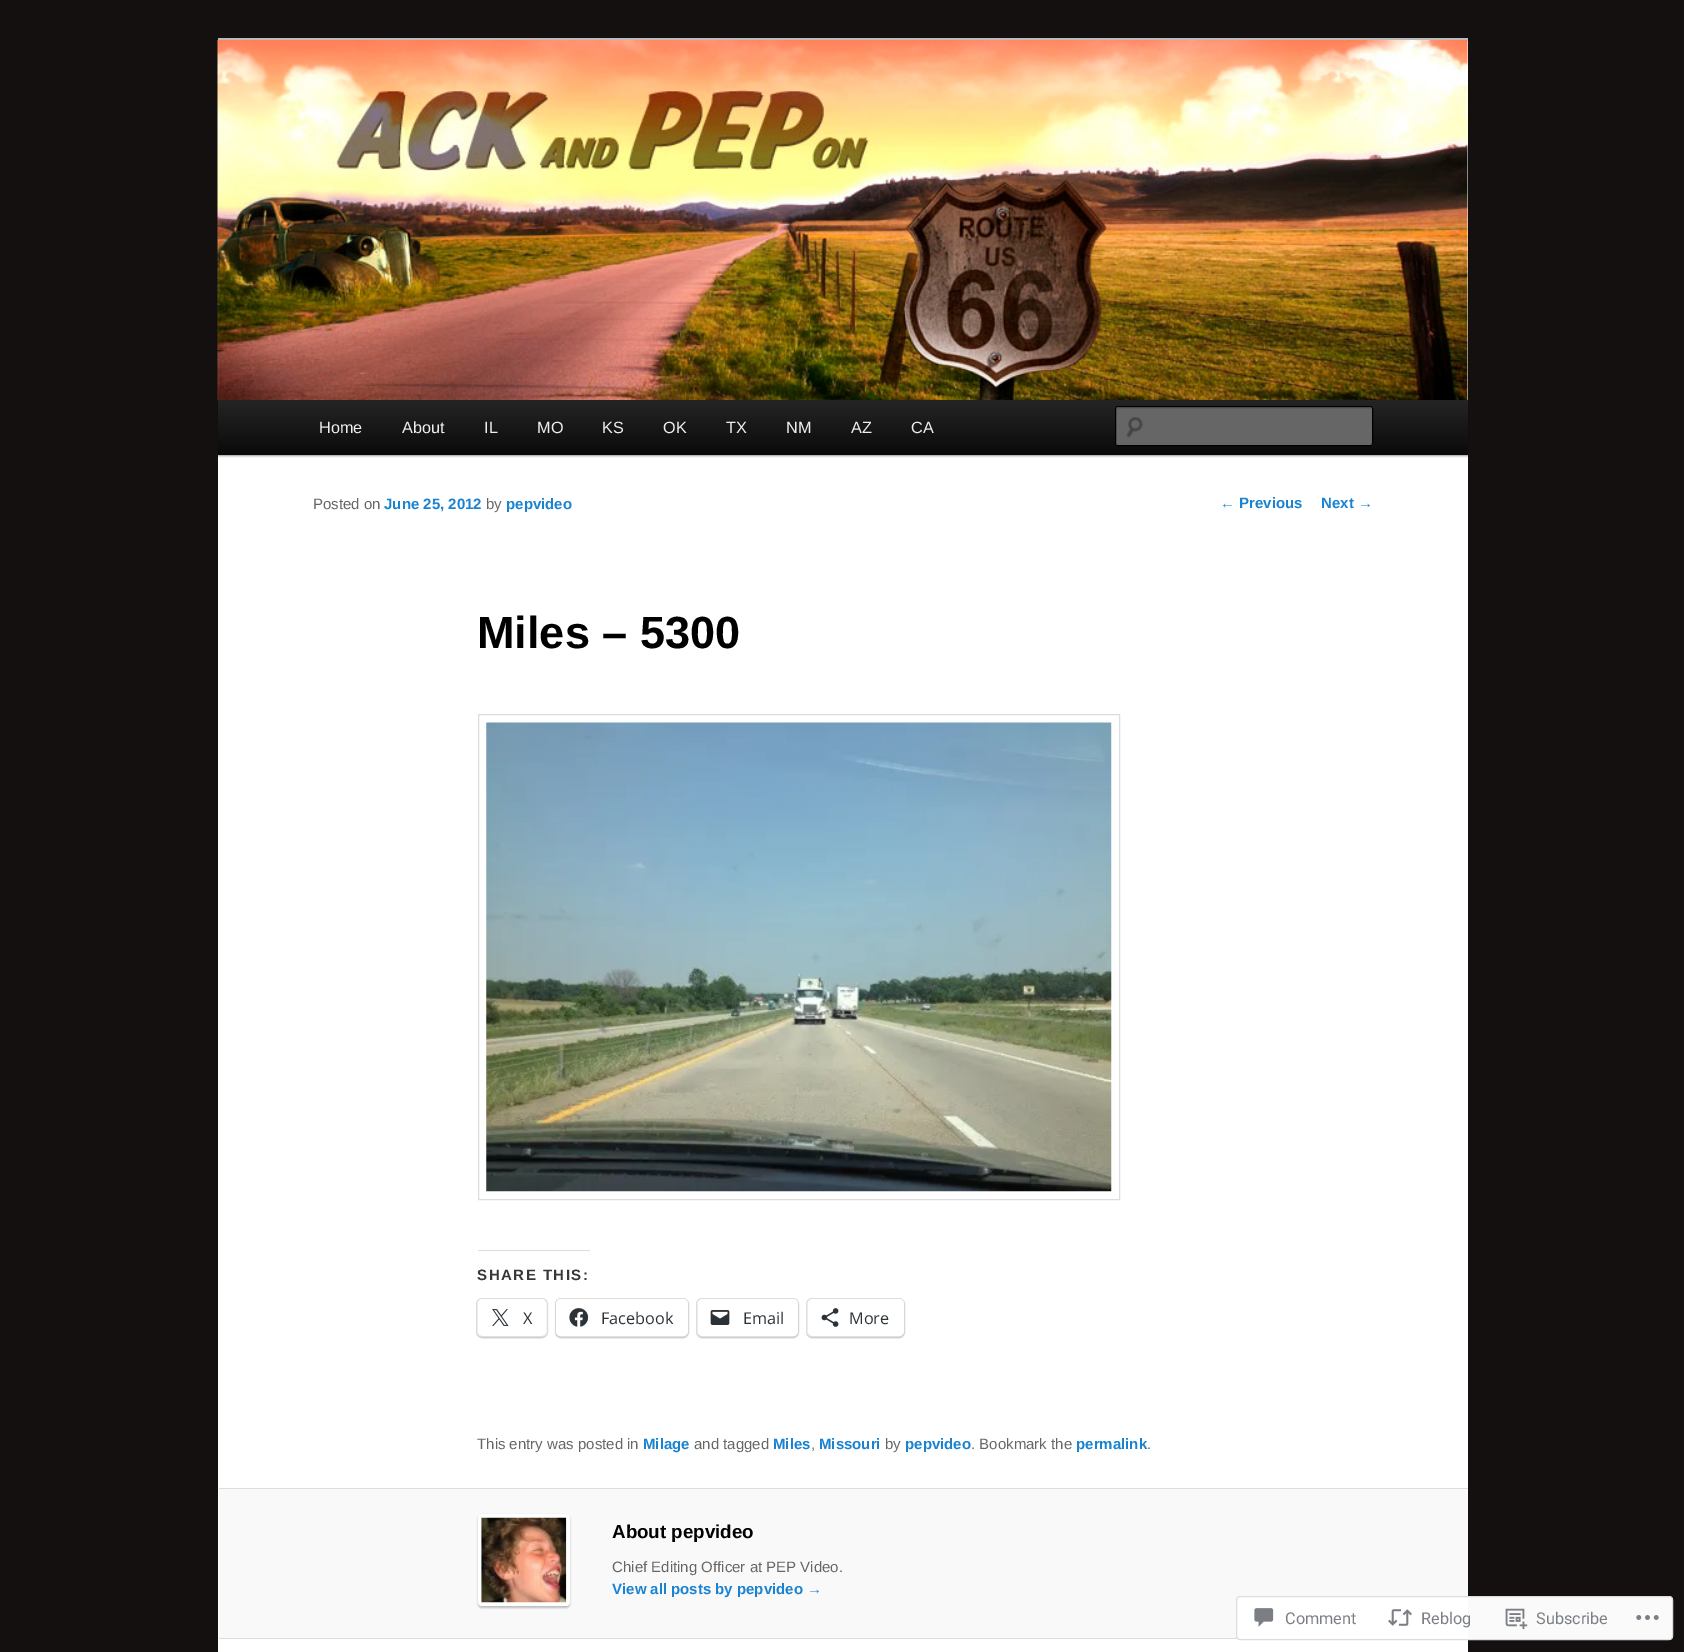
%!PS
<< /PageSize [1684 1652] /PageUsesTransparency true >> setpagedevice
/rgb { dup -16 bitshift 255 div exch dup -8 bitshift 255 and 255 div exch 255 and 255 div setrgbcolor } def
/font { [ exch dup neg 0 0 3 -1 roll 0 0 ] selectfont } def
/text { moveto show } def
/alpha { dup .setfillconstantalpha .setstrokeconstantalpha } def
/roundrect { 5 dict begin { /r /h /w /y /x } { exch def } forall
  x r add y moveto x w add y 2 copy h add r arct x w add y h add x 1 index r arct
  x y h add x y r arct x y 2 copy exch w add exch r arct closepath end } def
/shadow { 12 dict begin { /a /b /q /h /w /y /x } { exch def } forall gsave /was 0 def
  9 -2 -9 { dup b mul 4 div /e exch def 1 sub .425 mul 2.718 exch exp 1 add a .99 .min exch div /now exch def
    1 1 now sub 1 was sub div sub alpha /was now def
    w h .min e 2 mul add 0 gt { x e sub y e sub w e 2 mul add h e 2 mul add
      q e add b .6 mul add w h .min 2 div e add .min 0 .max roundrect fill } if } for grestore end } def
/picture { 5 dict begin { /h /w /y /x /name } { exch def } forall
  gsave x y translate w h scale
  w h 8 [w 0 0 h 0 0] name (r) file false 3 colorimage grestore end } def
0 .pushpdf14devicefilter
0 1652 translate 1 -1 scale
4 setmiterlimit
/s1 { /LiberationSans-Regular 16.25 font 16#EEEEEE rgb } def
/s2 { /LiberationSans-Regular 15 font 16#666666 rgb } def
/s3 { /LiberationSans-Bold 15 font 16#1982D1 rgb } def
/s4 { /LiberationSans-Bold 45 font 16#000000 rgb } def
/s5 { /OpenSans-Regular 16.25 font 16#2C3338 rgb } def
/s6 { /LiberationSans-Bold 18.75 font 16#000000 rgb } def
/s7 { /LiberationSans-Regular 15 font 16#1982D1 rgb } def
/s8 { /Roboto-Regular 16.25 font 16#7B7F84 rgb } def
16#141010 rgb
0 0 1684 1652 rectfill
16#FFFFFF rgb
218 41 1250 1611 rectfill
16#BBBBBB rgb
218 38 1250 3 rectfill
16#000000 rgb
218 401 1250 55 0 1 0.4 shadow
(pic1.raw) 217 40 1251 360 picture
gsave 218 400 moveto 1468 400 lineto 1468 455 lineto 218 455 lineto closepath clip newpath
<< /ShadingType 2 /ColorSpace /DeviceRGB /Coords [843 400 843 455] /Extend [true true] /Function << /FunctionType 2 /Domain [0 1] /C0 [0.145 0.145 0.145] /C1 [0.039 0.039 0.039] /N 1 >> >> shfill grestore
s1
(Home) 319 433 text
(About) 402 433 text
(IL) 484 433 text
(MO) 537 433 text
(KS) 602 433 text
(OK) 663 433 text
(TX) 726 433 text
(NM) 786 433 text
(AZ) 851 433 text
(CA) 911 433 text
16#666666 rgb
1115 406 258 40 2.5 roundrect fill
(pic2.raw) 1126 417 17 21 picture
16#5C5C5C rgb
1118 409 moveto 1370 409 lineto 1371 409 1371 409 1371 410 curveto 1371 408 lineto 1117 408 lineto 1116 408 1116 409 1116 410 curveto 1116 409 1117 409 1118 409 curveto closepath fill
16#000000 rgb
1115.5 406.5 257 39 2 roundrect stroke
s2
(Posted on) 313 509 text
s3
(June 25, 2012) 384 509 text
s2
(by) 486 509 text
s3
(pepvideo) 506 509 text
s4
(Miles – 5300) 477 648 text
16#DDDDDD rgb
478.5 714.5 641 485 rectstroke
(pic3.raw) 486 722 626 470 picture
16#DCDCDE rgb
478 1250 112 1 rectfill
/LiberationSans-Bold 15 font
16#373737 rgb
477 1280 moveto 1.5 0 (SHARE THIS:) ashow
16#E0E0E0 rgb
476.5 1298.5 71 39 5.5 roundrect stroke
16#000000 rgb
478 1300 68 38 5 1 0.12 shadow
16#FFFFFF rgb
478 1299 68 37 5 roundrect fill
(pic4.raw) 492 1309 17 17 picture
s5
(X) 523 1324 text
16#E0E0E0 rgb
555.5 1298.5 133 39 5.5 roundrect stroke
16#000000 rgb
556 1300 132 38 5 1 0.12 shadow
16#FFFFFF rgb
556 1299 132 37 5 roundrect fill
(pic5.raw) 569 1308 20 19 picture
s5
(Facebook) 601 1324 text
16#E0E0E0 rgb
696.5 1298.5 102 39 5.5 roundrect stroke
16#000000 rgb
698 1300 100 38 5 1 0.12 shadow
16#FFFFFF rgb
698 1299 100 37 5 roundrect fill
(pic6.raw) 710 1310 20 15 picture
s5
(Email) 743 1324 text
16#E0E0E0 rgb
806.5 1298.5 98 39 5.5 roundrect stroke
16#000000 rgb
808 1300 96 38 5 1 0.12 shadow
16#FFFFFF rgb
808 1299 96 37 5 roundrect fill
(pic7.raw) 821 1308 18 19 picture
s5
(More) 849 1324 text
s2
(This entry was posted in) 477 1449 text
s3
(Milage) 643 1449 text
s2
(and tagged) 694 1449 text
s3
(Miles) 773 1449 text
s2
(,) 811 1449 text
s3
(Missouri) 819 1449 text
s2
(by) 885 1449 text
s3
(pepvideo) 905 1449 text
s2
(. Bookmark the) 971 1449 text
s3
(permalink) 1076 1449 text
s2
(.) 1147 1449 text
16#F9F9F9 rgb
219 1489 1249 149 rectfill
16#DDDDDD rgb
219 1488 1249 1 rectfill
219 1638 1249 1 rectfill
16#BBBBBB rgb
478 1515 92 93 4 1 1 shadow
16#FFFFFF rgb
478 1514 92 92 4 roundrect fill
(pic8.raw) 481 1517 86 86 picture
s6
(About pepvideo) 612 1538 text
s2
(Chief Editing Officer at PEP Video.) 612 1572 text
s3
(View all posts by pepvideo →) 612 1594 text
s7
(←) 1220 508 text
s3
(Previous) 1239 508 text
(Next) 1321 508 text
s7
(→) 1358 508 text
0.98 alpha
16#FFFFFF rgb
1236 1596 437 44 4 roundrect fill
16#DCDCDE rgb
1236.5 1596.5 436 43 3.5 roundrect stroke
1 alpha
(pic9.raw) 1254 1608 20 19 picture
s8
(Comment) 1285 1624 text
(pic10.raw) 1388 1609 24 17 picture
(Reblog) 1421 1624 text
(pic11.raw) 1505 1608 23 22 picture
(Subscribe) 1536 1624 text
(pic12.raw) 1636 1615 23 5 picture
.poppdf14devicefilter showpage
